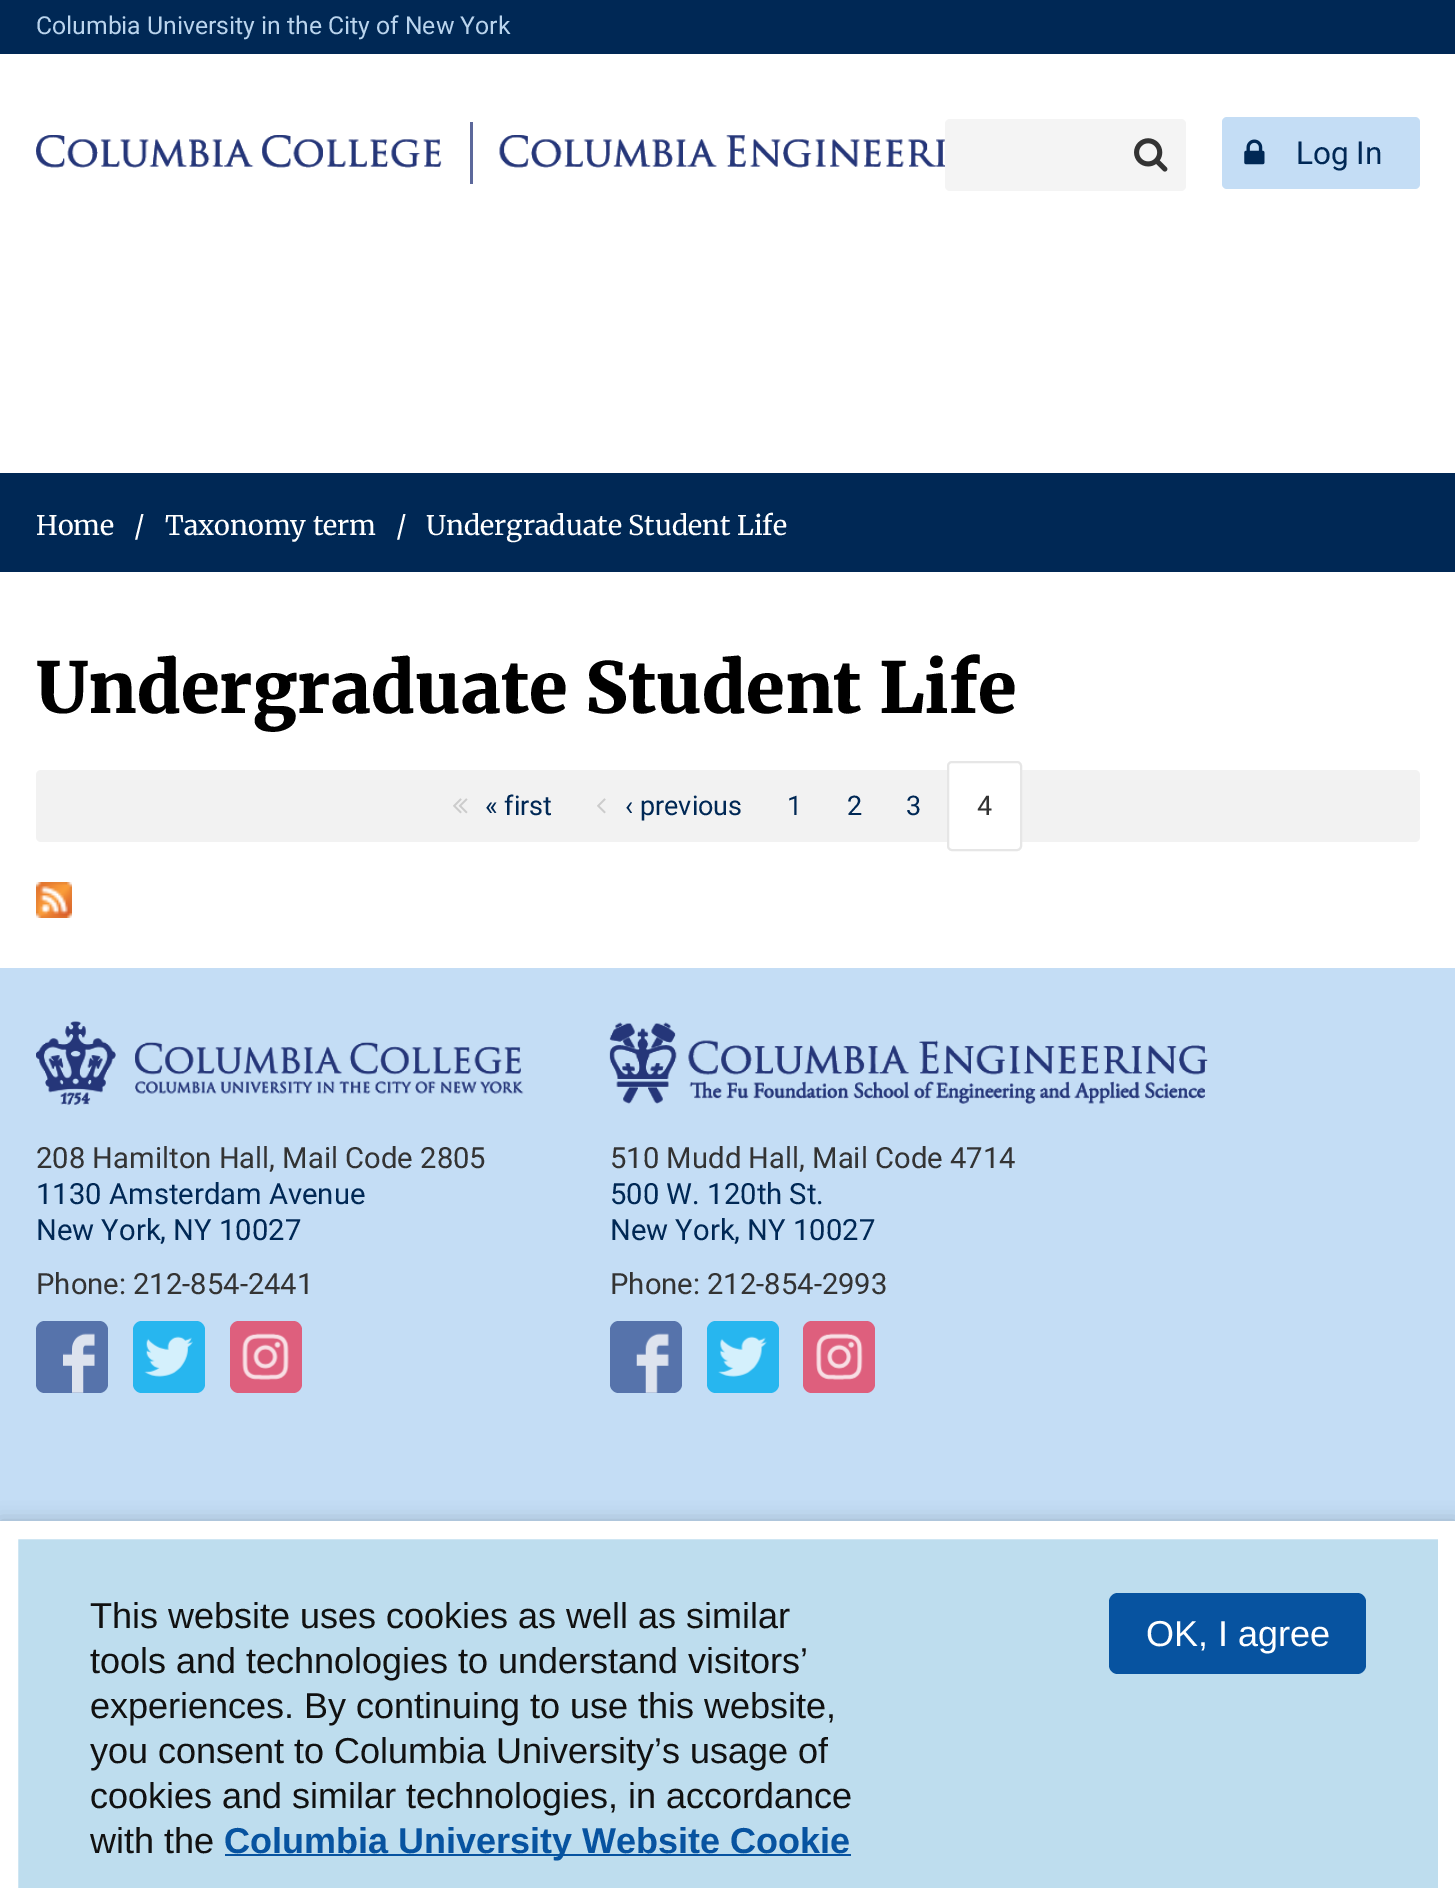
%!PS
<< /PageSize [1455 1888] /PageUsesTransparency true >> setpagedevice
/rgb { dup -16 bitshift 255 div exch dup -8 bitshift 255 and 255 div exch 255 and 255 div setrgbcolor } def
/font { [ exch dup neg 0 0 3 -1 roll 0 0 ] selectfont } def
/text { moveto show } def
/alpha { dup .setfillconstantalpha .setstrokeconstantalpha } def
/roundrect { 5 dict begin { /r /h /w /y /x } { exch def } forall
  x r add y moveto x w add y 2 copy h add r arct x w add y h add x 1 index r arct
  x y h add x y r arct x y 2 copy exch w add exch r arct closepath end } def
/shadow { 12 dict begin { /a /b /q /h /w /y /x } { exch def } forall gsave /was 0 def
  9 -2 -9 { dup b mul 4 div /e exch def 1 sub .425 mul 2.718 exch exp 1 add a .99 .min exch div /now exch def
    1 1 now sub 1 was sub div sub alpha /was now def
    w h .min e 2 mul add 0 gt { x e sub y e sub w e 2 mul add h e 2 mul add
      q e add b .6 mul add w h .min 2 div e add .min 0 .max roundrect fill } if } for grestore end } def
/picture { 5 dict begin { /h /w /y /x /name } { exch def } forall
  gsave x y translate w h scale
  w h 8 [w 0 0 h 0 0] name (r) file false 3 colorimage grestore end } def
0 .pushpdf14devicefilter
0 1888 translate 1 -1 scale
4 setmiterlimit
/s1 { /Roboto-Regular 24.75 font 16#BAD4ED rgb } def
/s2 { /Roboto-Regular 31.5 font 16#002855 rgb } def
/s3 { /Merriweather-Regular 27 font 16#FFFFFF rgb } def
/s4 { /Merriweather-Black 70.25 font 16#000000 rgb } def
/s5 { /Roboto-Regular 27 font 16#002855 rgb } def
/s6 { /Roboto-Regular 27 font 16#333333 rgb } def
/s7 { /Roboto-Regular 29.2 font 16#333333 rgb } def
/s8 { /Roboto-Regular 29.2 font 16#002855 rgb } def
/s9 { /LiberationSans-Regular 36 font 16#111111 rgb } def
/s10 { /LiberationSans-Bold 36 font 16#0753A0 rgb } def
/s11 { /LiberationSans-Regular 36 font 16#FFFFFF rgb } def
16#FFFFFF rgb
0 0 1455 1888 rectfill
16#002855 rgb
0 0 1455 54 rectfill
s1
(Columbia University in the City of New York) 36 34 text
(pic1.raw) 36 135 406 33 picture
(pic2.raw) 36 135 406 33 picture
16#5C689B rgb
470 122 3 62 rectfill
(pic3.raw) 499 135 446 33 picture
(pic4.raw) 499 135 446 33 picture
16#F4F4F4 rgb
945 119 241 72 5 roundrect fill
(pic5.raw) 1134 138 34 34 picture
16#C4DDF5 rgb
1222 117 198 72 5 roundrect fill
(pic6.raw) 1244 139 21 26 picture
s2
(Log In) 1296 164 text
0 473 1455 99 rectfill
s3
(Home) 36 535 text
(/) 134 535 text
(Taxonomy term) 165 535 text
(/) 396 535 text
(Undergraduate Student Life) 426 535 text
s4
(Undergraduate Student Life) 36 713 text
16#F2F2F2 rgb
36 770 1384 72 5 roundrect fill
(pic7.raw) 453 798 15 16 picture
s5
(« first) 485 815 text
(pic8.raw) 597 798 9 16 picture
(‹ previous) 625 815 text
(1) 787 815 text
(2) 847 815 text
(3) 906 815 text
16#FFFFFF rgb
948 762 73 88 4 roundrect gsave fill grestore
16#E6E6E6 rgb
2 setlinewidth
stroke
s6
(4) 977 815 text
(pic9.raw) 36 882 36 36 picture
16#C4DDF5 rgb
0 968 1455 553 rectfill
(pic10.raw) 36 1021 488 84 picture
(pic11.raw) 36 1021 488 84 picture
s7
(208 Hamilton Hall, Mail Code 2805) 36 1168 text
s8
(1130 Amsterdam Avenue) 36 1204 text
(New York, NY 10027) 36 1240 text
s7
(Phone: 212-854-2441) 36 1294 text
16#5673AB rgb
36 1321 72 72 9 roundrect fill
(pic12.raw) 63 1333 32 60 picture
16#27B6EF rgb
133 1321 72 72 9 roundrect fill
(pic13.raw) 144 1336 49 41 picture
16#DE5F7D rgb
230 1321 72 72 9 roundrect fill
(pic14.raw) 242 1333 47 47 picture
(pic15.raw) 609 1022 599 82 picture
(pic16.raw) 609 1022 599 82 picture
s7
(510 Mudd Hall, Mail Code 4714) 610 1168 text
s8
(500 W. 120th St.) 610 1204 text
(New York, NY 10027) 610 1240 text
s7
(Phone: 212-854-2993) 610 1294 text
16#5673AB rgb
610 1321 72 72 9 roundrect fill
(pic17.raw) 636 1333 33 60 picture
16#27B6EF rgb
707 1321 72 72 9 roundrect fill
(pic18.raw) 718 1336 49 41 picture
16#DE5F7D rgb
803 1321 72 72 9 roundrect fill
(pic19.raw) 816 1333 47 47 picture
16#000000 rgb
0 1521 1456 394 0 9 0.2 shadow
16#BEDDEE rgb
9 1530 moveto 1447 1530 lineto 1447 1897 lineto 9 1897 lineto closepath gsave fill grestore
16#FFFFFF rgb
18 setlinewidth
stroke
s9
(This website uses cookies as well as similar) 90 1628 text
(tools and technologies to understand visitors’) 90 1673 text
(experiences. By continuing to use this website,) 90 1718 text
(you consent to Columbia University’s usage of) 90 1763 text
(cookies and similar technologies, in accordance) 90 1808 text
(with the) 90 1853 text
16#0753A0 rgb
225 1854 626 2 rectfill
s10
(Columbia University Website Cookie) 224 1853 text
1109 1593 257 81 9 roundrect fill
s11
(OK, I agree) 1146 1646 text
.poppdf14devicefilter showpage
